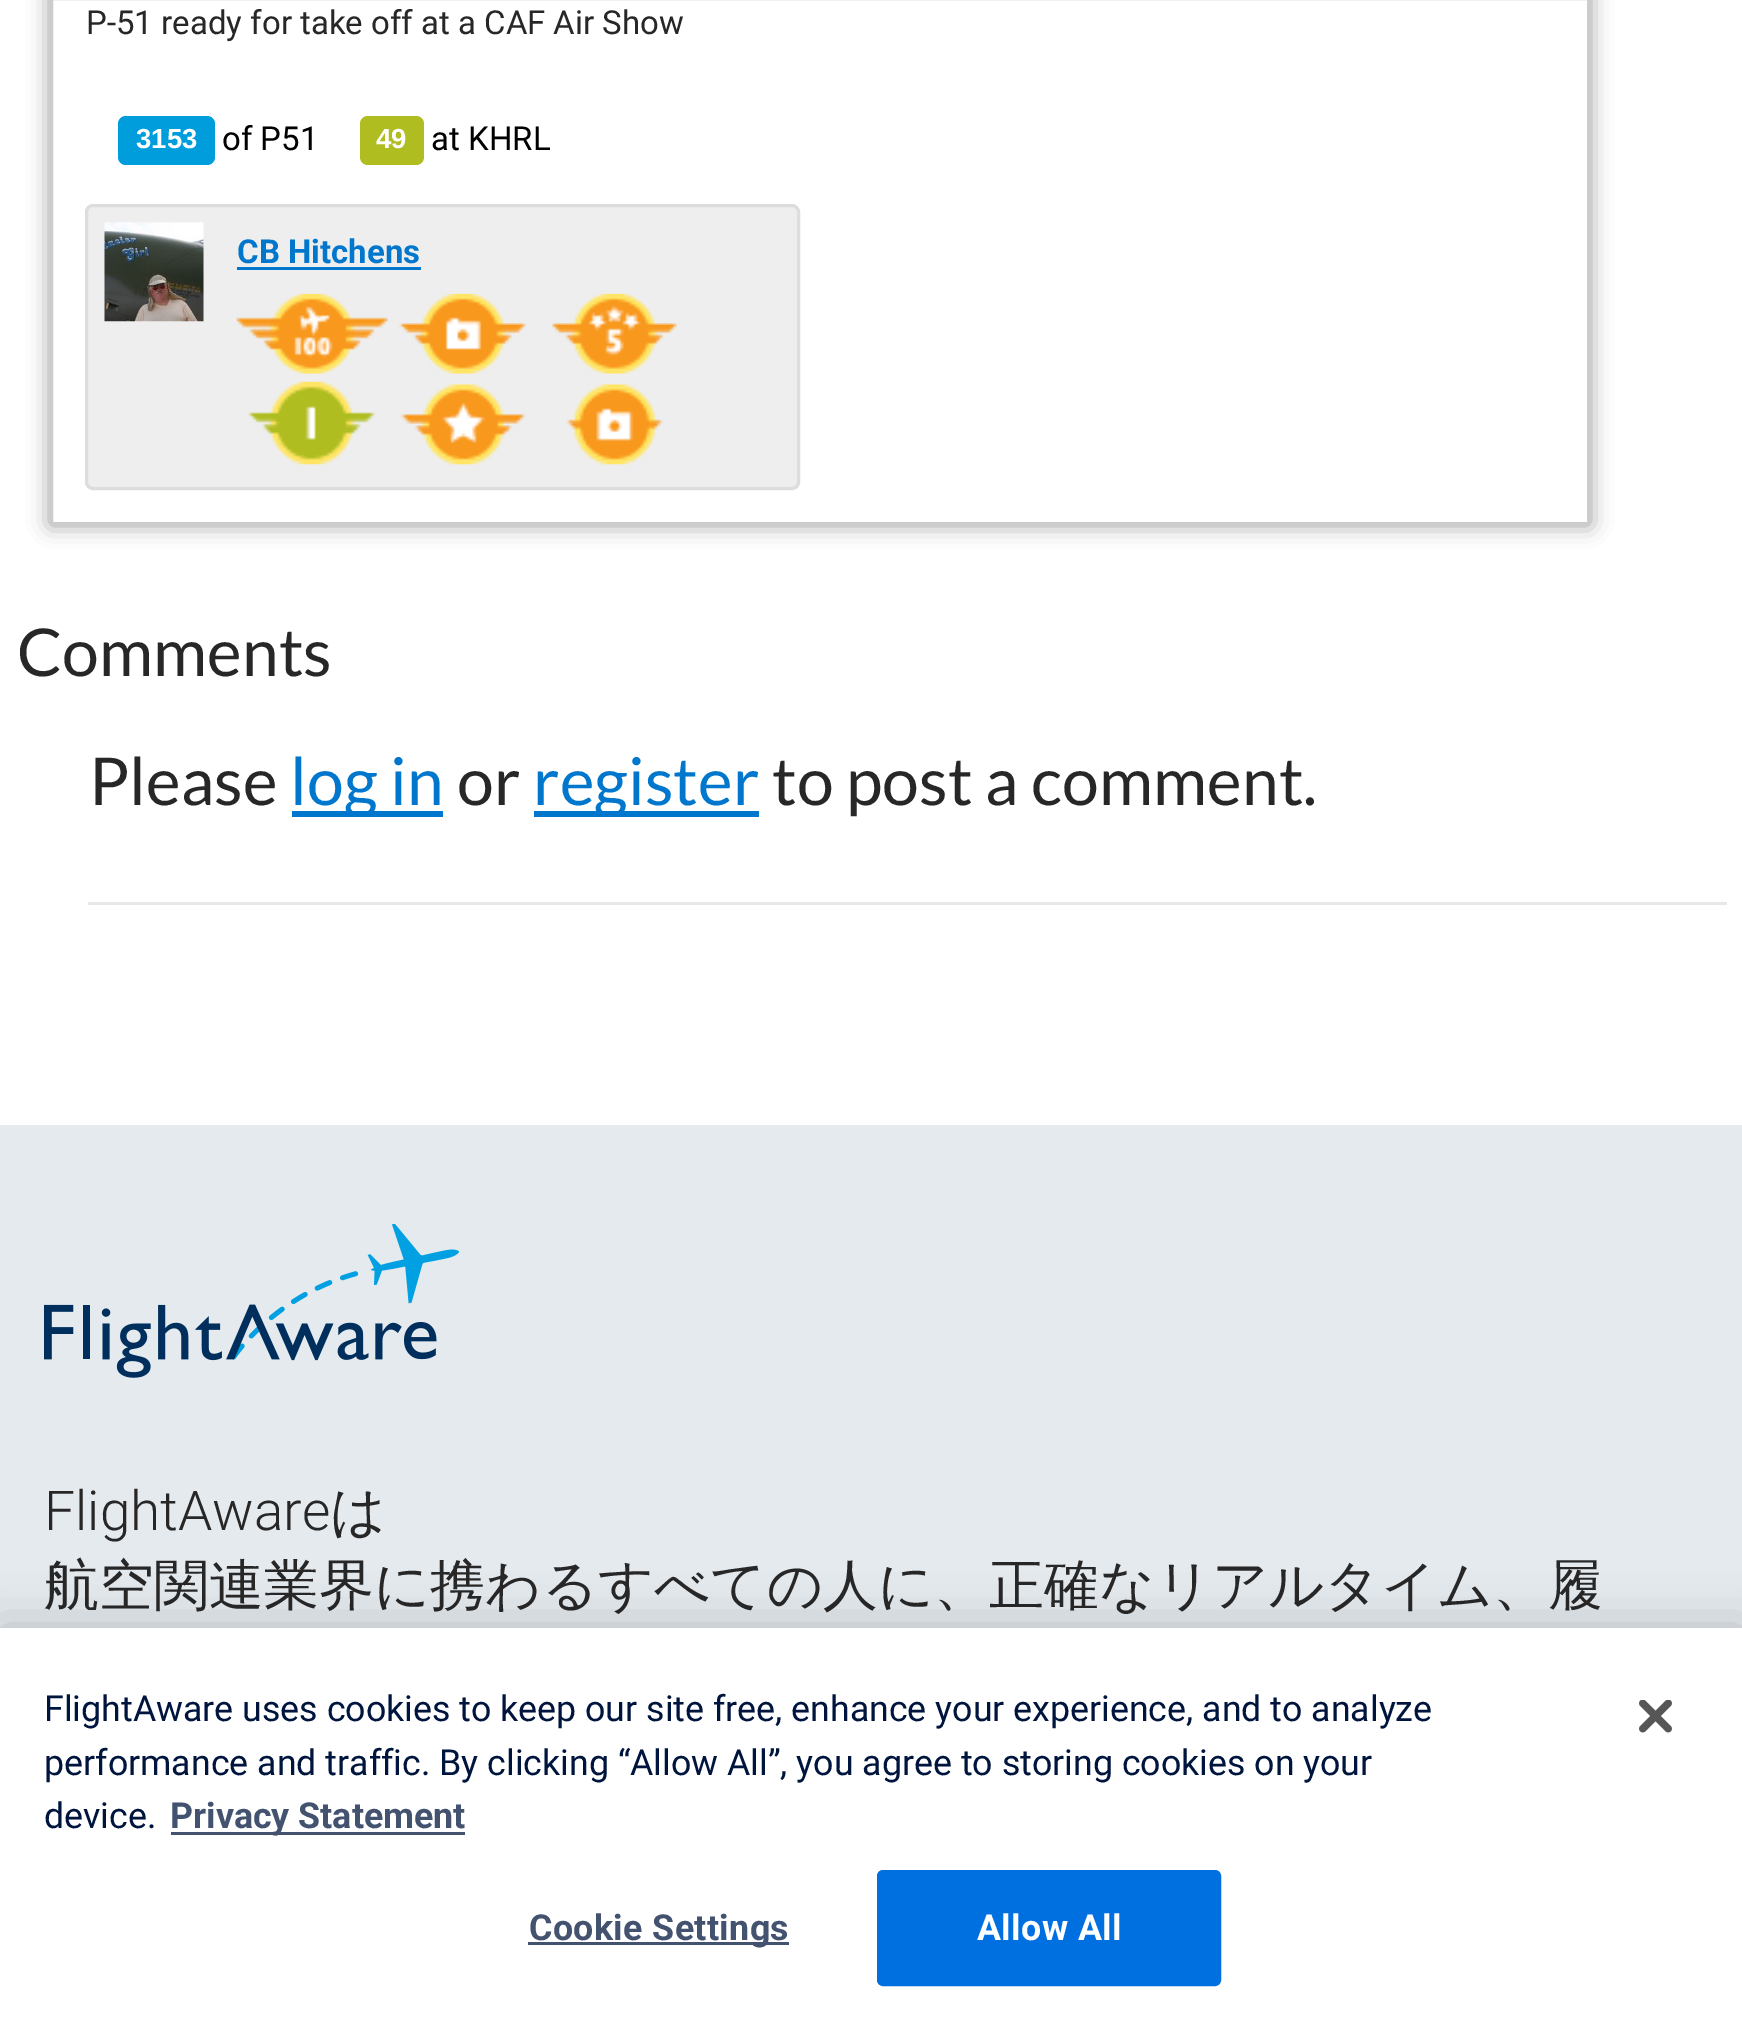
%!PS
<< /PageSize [1742 2028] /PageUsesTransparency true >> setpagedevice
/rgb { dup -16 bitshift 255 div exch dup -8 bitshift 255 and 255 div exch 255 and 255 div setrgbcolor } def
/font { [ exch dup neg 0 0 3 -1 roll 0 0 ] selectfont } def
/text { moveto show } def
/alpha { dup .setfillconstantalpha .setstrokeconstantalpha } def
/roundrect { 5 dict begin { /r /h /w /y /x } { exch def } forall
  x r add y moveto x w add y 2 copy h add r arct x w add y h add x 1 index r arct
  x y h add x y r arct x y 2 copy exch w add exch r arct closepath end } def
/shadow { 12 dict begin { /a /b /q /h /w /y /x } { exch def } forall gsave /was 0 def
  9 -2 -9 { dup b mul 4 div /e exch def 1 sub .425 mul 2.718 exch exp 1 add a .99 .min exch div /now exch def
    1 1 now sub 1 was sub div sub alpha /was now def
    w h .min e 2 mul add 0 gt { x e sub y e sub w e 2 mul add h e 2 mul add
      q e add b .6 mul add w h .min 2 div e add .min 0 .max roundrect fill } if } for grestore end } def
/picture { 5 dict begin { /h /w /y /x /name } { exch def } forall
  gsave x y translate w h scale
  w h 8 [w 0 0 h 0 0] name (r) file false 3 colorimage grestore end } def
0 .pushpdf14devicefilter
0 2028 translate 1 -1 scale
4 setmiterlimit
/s1 { /Roboto-Regular 33 font 16#272727 rgb } def
/s2 { /LiberationSans-Bold 27.5 font 16#FFFFFF rgb } def
/s3 { /Roboto-Regular 33 font 16#000000 rgb } def
/s4 { /Roboto-Bold 33 font 16#0077CC rgb } def
/s5 { /Lato-Regular 66 font 16#272727 rgb } def
/s6 { /Lato-Regular 66 font 16#0077CC rgb } def
/s7 { /Roboto-Light 55 font 16#272727 rgb } def
/s8 { /WenQuanYiZenHei-Medium 55 font 16#272727 rgb } def
/s9 { /Roboto-Regular 35.75 font 16#00153D rgb } def
/s10 { /Roboto-Bold 35.75 font 16#42526F rgb } def
16#FFFFFF rgb
0 0 1742 2028 rectfill
gsave
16 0 moveto 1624 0 lineto 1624 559 lineto 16 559 lineto closepath 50 -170 moveto 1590 -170 lineto 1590 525 lineto 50 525 lineto closepath eoclip newpath
16#999999 rgb
50 -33 1540 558 0 11 1 shadow
grestore
16#CCCCCC rgb
3 setlinewidth
51.5 -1.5 1537 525 rectstroke
s1
(P-51 ready for take off at a CAF Air Show) 86 34 text
16#009DDC rgb
118 116 97 49 8 roundrect fill
s2
(3153) 136 148 text
s3
(of P51) 222 150 text
16#AFBD21 rgb
360 116 64 49 8 roundrect fill
s2
(49) 376 148 text
s3
(at KHRL) 431 150 text
16#EEEEEE rgb
86.5 205.5 712 283 6.5 roundrect gsave fill grestore
16#DDDDDD rgb
stroke
(pic1.raw) 104 222 100 100 picture
s4
(CB Hitchens) 237 263 text
237 267 184 3 rectfill
(pic2.raw) 236 293 152 81 picture
(pic3.raw) 398 293 128 81 picture
(pic4.raw) 552 293 126 81 picture
(pic5.raw) 247 381 128 84 picture
(pic6.raw) 400 384 126 81 picture
(pic7.raw) 566 384 98 81 picture
s5
(Comments) 17 676 text
16#E8E8E8 rgb
88 902 1639 3 rectfill
s5
(Please) 89 805 text
16#0077CC rgb
292 811 151 6 rectfill
(log in) 290 805 text
s5
(or) 457 805 text
16#0077CC rgb
534 811 225 6 rectfill
(register) 533 805 text
s5
(to post a comment.) 772 805 text
16#E5EAEF rgb
0 1125 1742 503 rectfill
(pic8.raw) 44 1224 415 154 picture
s7
(FlightAware) 44 1530 text
s8
(は) 330 1530 text
(航空関連業界に携わるすべての人に、正確なリアルタイム、履) 44 1604 text
16#000000 rgb
0 1628 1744 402 0 25 0.2 shadow
16#FFFFFF rgb
0 1628 1742 400 rectfill
s9
(FlightAware uses cookies to keep our site free, enhance your experience, and to analyze) 44 1721 text
(performance and traffic. By clicking “Allow All”, you agree to storing cookies on your) 44 1775 text
(device.) 44 1828 text
16#42526F rgb
171 1832 294 3 rectfill
s10
(Privacy Statement) 170 1828 text
528 1942 261 3 rectfill
529 1940 moveto 0.4 0 (Cookie Settings) ashow
16#0070E0 rgb
878.5 1871.5 341 113 4.5 roundrect gsave fill grestore
stroke
16#FFFFFF rgb
977 1940 moveto 0.4 0 (Allow All) ashow
(pic9.raw) 1639 1700 33 33 picture
.poppdf14devicefilter showpage
